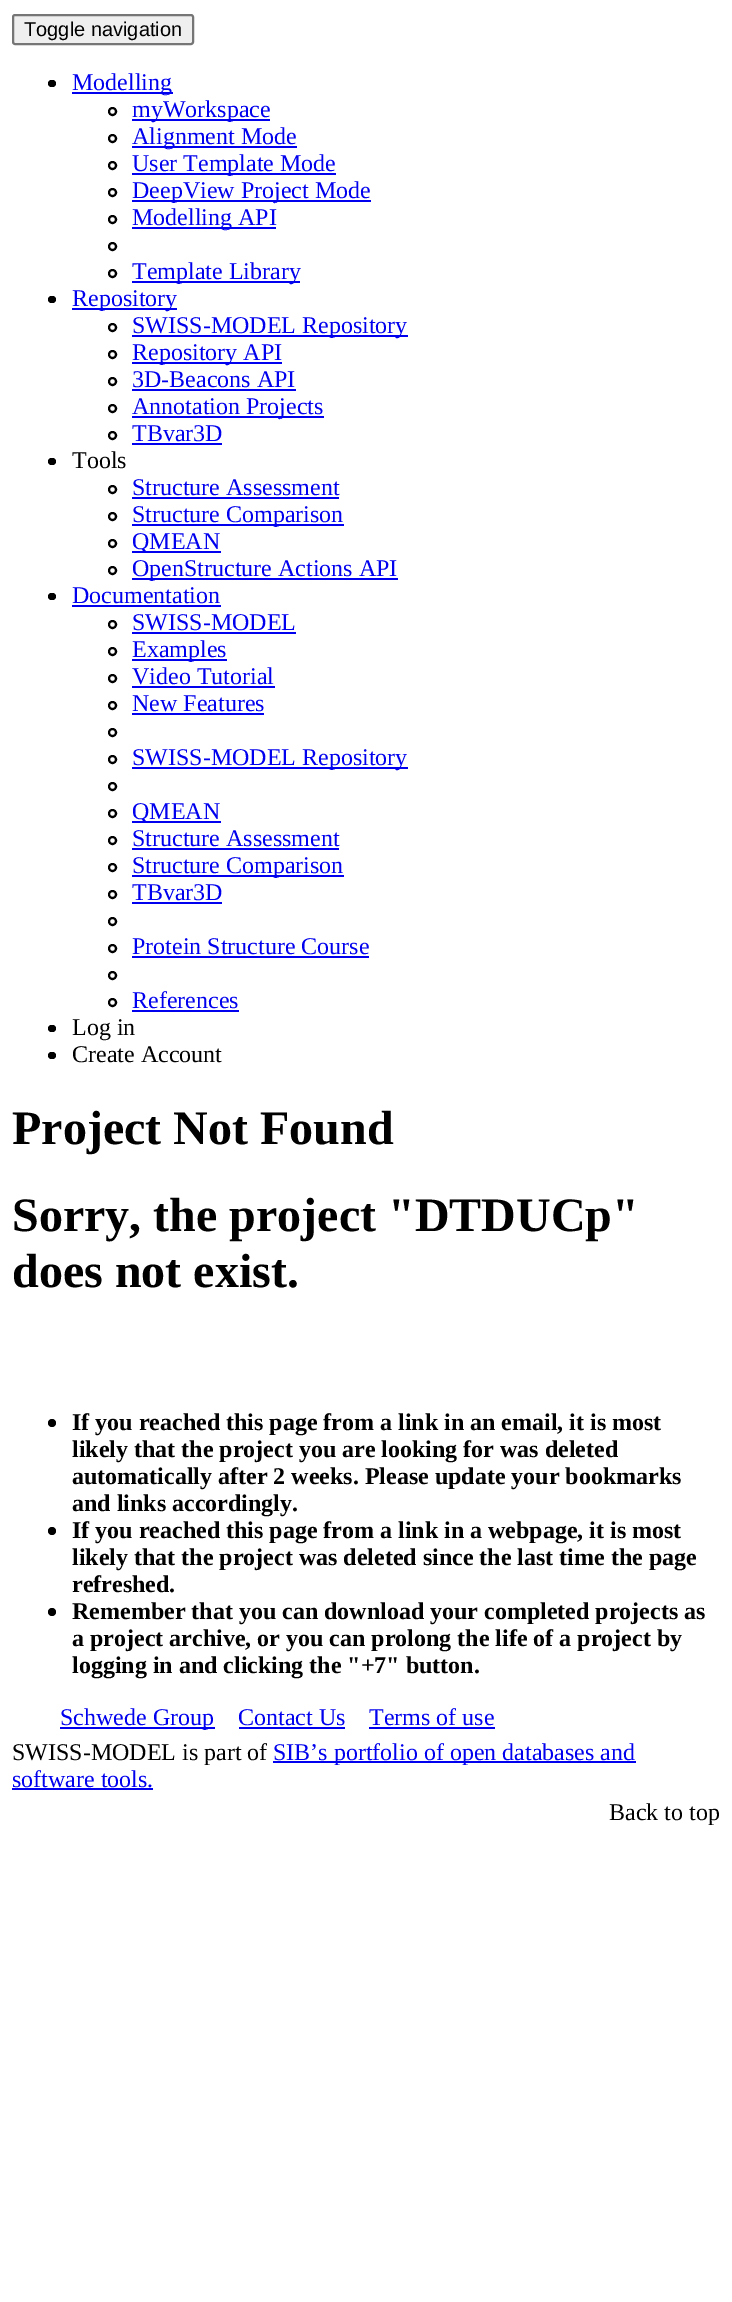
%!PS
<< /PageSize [732 2302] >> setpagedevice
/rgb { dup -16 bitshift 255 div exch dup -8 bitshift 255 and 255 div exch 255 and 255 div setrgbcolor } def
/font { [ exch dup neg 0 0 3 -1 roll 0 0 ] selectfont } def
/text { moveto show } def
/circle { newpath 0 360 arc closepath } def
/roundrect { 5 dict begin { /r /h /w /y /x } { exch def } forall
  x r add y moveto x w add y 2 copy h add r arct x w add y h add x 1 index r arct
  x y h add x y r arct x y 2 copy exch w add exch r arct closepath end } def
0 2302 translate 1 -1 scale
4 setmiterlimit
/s1 { /LiberationSans-Regular 20 font 16#000000 rgb } def
/s2 { /LiberationSerif-Regular 24 font 16#0000EE rgb } def
/s3 { /LiberationSerif-Regular 24 font 16#000000 rgb } def
/s4 { /LiberationSerif-Bold 48 font 16#000000 rgb } def
/s5 { /LiberationSerif-Bold 24 font 16#000000 rgb } def
16#FFFFFF rgb
0 0 732 2302 rectfill
16#EFEFEF rgb
13 15 180 29 2 roundrect gsave fill grestore
16#767676 rgb
2 setlinewidth
stroke
s1
(Toggle navigation) 24 36 text
48 80 8 7 3.5 roundrect fill
16#0000EE rgb
72 92 101 2 rectfill
s2
(Modelling) 72 90 text
16#000000 rgb
112.5 111.5 3.5 circle stroke
16#0000EE rgb
132 119 138 2 rectfill
(myWorkspace) 132 117 text
16#000000 rgb
112.5 138.5 3.5 circle stroke
16#0000EE rgb
132 146 165 2 rectfill
(Alignment Mode) 132 144 text
16#000000 rgb
112.5 165.5 3.5 circle stroke
16#0000EE rgb
132 173 204 2 rectfill
(User Template Mode) 132 171 text
16#000000 rgb
112.5 192.5 3.5 circle stroke
16#0000EE rgb
132 200 239 2 rectfill
(DeepView Project Mode) 132 198 text
16#000000 rgb
112.5 219.5 3.5 circle stroke
16#0000EE rgb
132 227 144 2 rectfill
(Modelling API) 132 225 text
16#000000 rgb
112.5 246.5 3.5 circle stroke
112.5 273.5 3.5 circle stroke
16#0000EE rgb
132 281 168 2 rectfill
(Template Library) 132 279 text
16#000000 rgb
48 296 8 7 3.5 roundrect fill
16#0000EE rgb
72 308 105 2 rectfill
(Repository) 72 306 text
16#000000 rgb
112.5 327.5 3.5 circle stroke
16#0000EE rgb
132 335 276 2 rectfill
(SWISS-MODEL Repository) 132 333 text
16#000000 rgb
112.5 354.5 3.5 circle stroke
16#0000EE rgb
132 362 150 2 rectfill
(Repository API) 132 360 text
16#000000 rgb
112.5 381.5 3.5 circle stroke
s2
(3D-Beacons API) 132 387 text
132 389 164 2 rectfill
16#000000 rgb
112.5 408.5 3.5 circle stroke
16#0000EE rgb
132 416 192 2 rectfill
(Annotation Projects) 132 414 text
16#000000 rgb
112.5 435.5 3.5 circle stroke
s2
(TBvar3D) 132 441 text
132 443 90 2 rectfill
16#000000 rgb
48 458 8 7 3.5 roundrect fill
(Tools) 72 468 text
112.5 489.5 3.5 circle stroke
s2
(Structure Assessment) 132 495 text
132 497 207 2 rectfill
16#000000 rgb
112.5 516.5 3.5 circle stroke
16#0000EE rgb
132 524 212 2 rectfill
(Structure Comparison) 132 522 text
16#000000 rgb
112.5 543.5 3.5 circle stroke
16#0000EE rgb
132 551 89 2 rectfill
(QMEAN) 132 549 text
16#000000 rgb
112.5 570.5 3.5 circle stroke
16#0000EE rgb
132 578 266 2 rectfill
(OpenStructure Actions API) 132 576 text
16#000000 rgb
48 593 8 7 3.5 roundrect fill
s2
(Documentation) 72 603 text
72 605 149 2 rectfill
16#000000 rgb
112.5 624.5 3.5 circle stroke
s2
(SWISS-MODEL) 132 630 text
132 632 164 2 rectfill
16#000000 rgb
112.5 651.5 3.5 circle stroke
16#0000EE rgb
132 659 95 2 rectfill
(Examples) 132 657 text
16#000000 rgb
112.5 678.5 3.5 circle stroke
s2
(Video Tutorial) 132 684 text
132 686 143 2 rectfill
16#000000 rgb
112.5 705.5 3.5 circle stroke
s2
(New Features) 132 711 text
132 713 132 2 rectfill
16#000000 rgb
112.5 732.5 3.5 circle stroke
112.5 759.5 3.5 circle stroke
16#0000EE rgb
132 767 276 2 rectfill
(SWISS-MODEL Repository) 132 765 text
16#000000 rgb
112.5 786.5 3.5 circle stroke
112.5 813.5 3.5 circle stroke
16#0000EE rgb
132 821 89 2 rectfill
(QMEAN) 132 819 text
16#000000 rgb
112.5 840.5 3.5 circle stroke
s2
(Structure Assessment) 132 846 text
132 848 207 2 rectfill
16#000000 rgb
112.5 867.5 3.5 circle stroke
16#0000EE rgb
132 875 212 2 rectfill
(Structure Comparison) 132 873 text
16#000000 rgb
112.5 894.5 3.5 circle stroke
s2
(TBvar3D) 132 900 text
132 902 90 2 rectfill
16#000000 rgb
112.5 921.5 3.5 circle stroke
112.5 948.5 3.5 circle stroke
s2
(Protein Structure Course) 132 954 text
132 956 237 2 rectfill
16#000000 rgb
112.5 975.5 3.5 circle stroke
112.5 1002.5 3.5 circle stroke
s2
(References) 132 1008 text
132 1010 107 2 rectfill
16#000000 rgb
48 1025 8 7 3.5 roundrect fill
(Log in) 72 1035 text
48 1052 8 7 3.5 roundrect fill
(Create Account) 72 1062 text
s4
(Project Not Found) 12 1144 text
(Sorry, the project "DTDUCp") 12 1231 text
(does not exist.) 12 1287 text
52 1423 4 circle fill
s5
(If you reached this page from a link in an email, it is most) 72 1430 text
(likely that the project you are looking for was deleted) 72 1457 text
(automatically after 2 weeks. Please update your bookmarks) 72 1484 text
(and links accordingly.) 72 1511 text
52 1531 4 circle fill
(If you reached this page from a link in a webpage, it is most) 72 1538 text
(likely that the project was deleted since the last time the page) 72 1565 text
(refreshed.) 72 1592 text
52 1612 4 circle fill
(Remember that you can download your completed projects as) 72 1619 text
(a project archive, or you can prolong the life of a project by) 72 1646 text
(logging in and clicking the "+7" button.) 72 1673 text
16#0000EE rgb
60 1727 155 2 rectfill
s2
(Schwede Group) 60 1725 text
(Contact Us) 238 1725 text
239 1727 106 2 rectfill
(Terms of use) 369 1725 text
369 1727 126 2 rectfill
s3
(SWISS-MODEL is part of) 12 1760 text
16#0000EE rgb
273 1761 363 2 rectfill
(SIB’s portfolio of open databases and) 273 1760 text
(software tools.) 12 1787 text
12 1788 141 2 rectfill
s3
(Back to top) 609 1820 text
showpage
